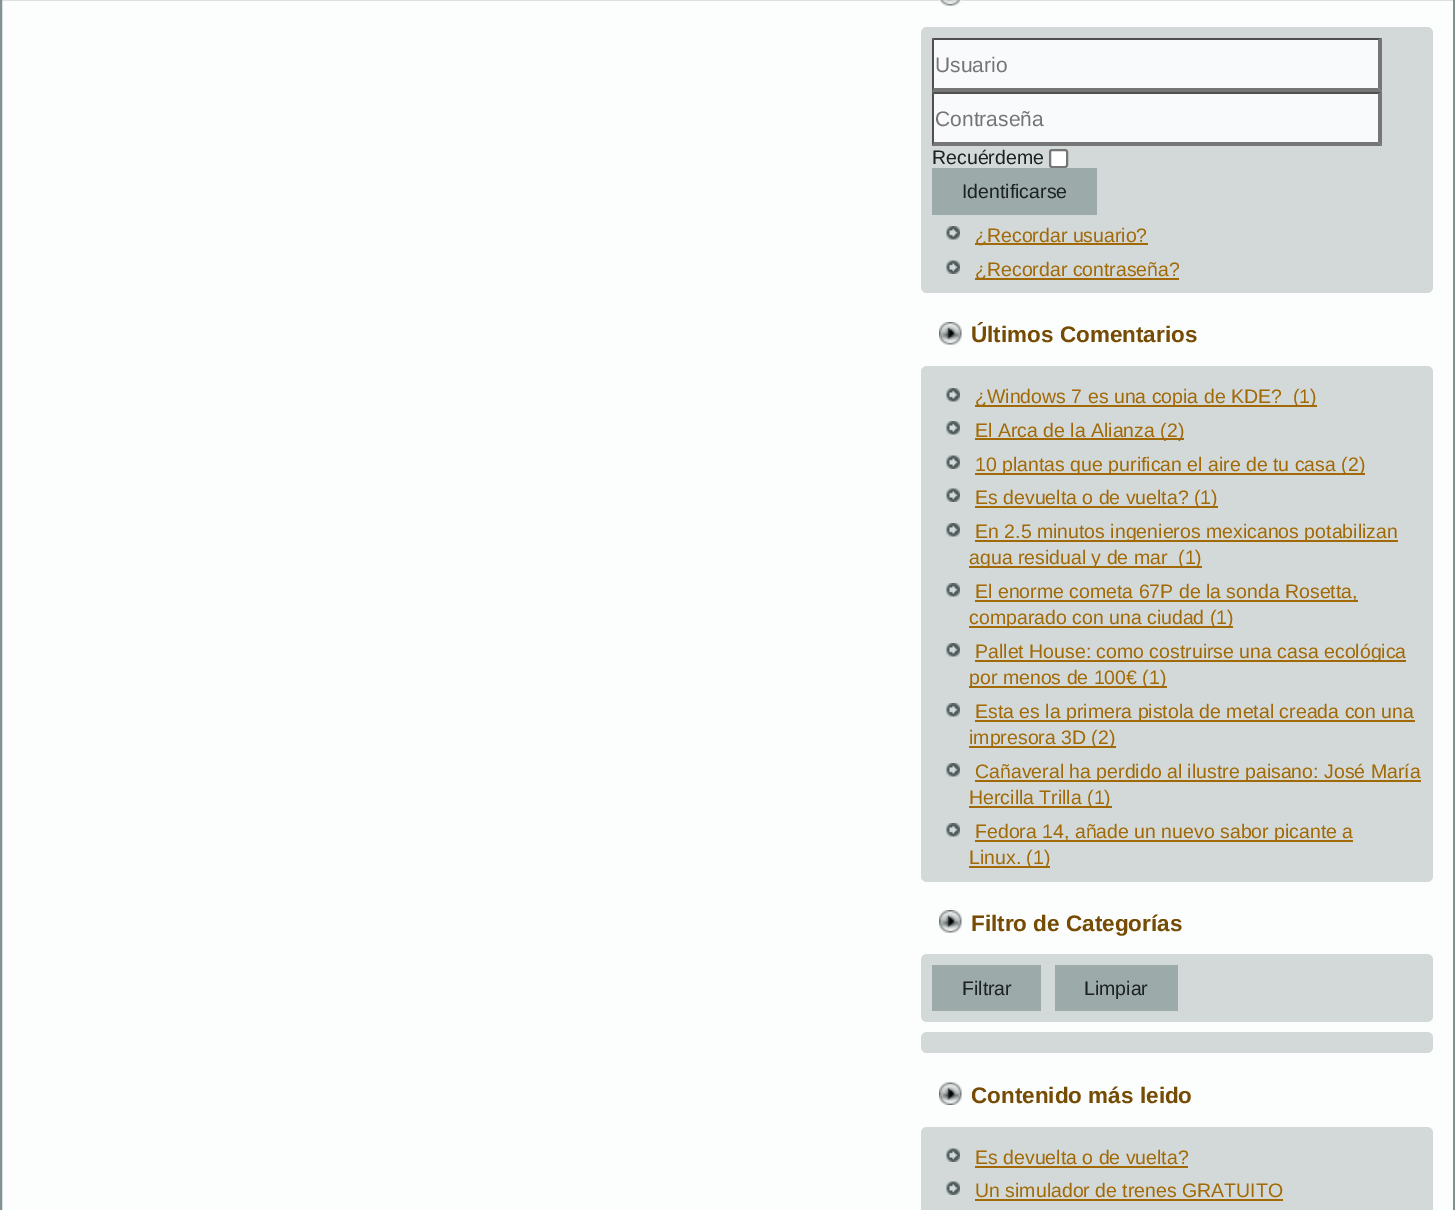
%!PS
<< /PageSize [1455 1210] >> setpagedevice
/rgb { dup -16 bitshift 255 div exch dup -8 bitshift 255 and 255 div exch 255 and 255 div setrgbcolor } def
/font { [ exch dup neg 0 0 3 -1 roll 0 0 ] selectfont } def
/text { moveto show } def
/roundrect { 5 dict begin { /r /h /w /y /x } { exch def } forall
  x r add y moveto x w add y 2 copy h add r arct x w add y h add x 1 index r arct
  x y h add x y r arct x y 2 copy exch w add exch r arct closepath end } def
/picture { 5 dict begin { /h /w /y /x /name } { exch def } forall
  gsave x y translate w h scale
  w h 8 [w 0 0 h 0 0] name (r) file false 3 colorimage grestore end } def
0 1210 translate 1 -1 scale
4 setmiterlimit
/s1 { /LiberationSans-Regular 21 font 16#757575 rgb } def
/s2 { /LiberationSans-Regular 19.5 font 16#1C2121 rgb } def
/s3 { /LiberationSans-Regular 19.5 font 16#A26907 rgb } def
/s4 { /LiberationSans-Bold 22.5 font 16#764C05 rgb } def
16#FCFDFD rgb
0 0 1455 1210 rectfill
16#819292 rgb
2 setlinewidth
1 -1 1453 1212 rectstroke
(pic1.raw) 939 0 23 6 picture
16#D3D9D9 rgb
921 27 512 266 6 roundrect fill
16#F9FAFB rgb
932 38 450 108 rectfill
16#4F4F4F rgb
932 38 moveto 1382 38 lineto 1378 40 lineto 934 40 lineto closepath fill
16#767676 rgb
1382 38 moveto 1382 92 lineto 1378 88 lineto 1378 40 lineto closepath fill
1382 92 moveto 932 92 lineto 934 88 lineto 1378 88 lineto closepath fill
16#4F4F4F rgb
932 92 moveto 932 38 lineto 934 40 lineto 934 88 lineto closepath fill
s1
(Usuario) 935 72 text
16#4F4F4F rgb
932 92 moveto 1382 92 lineto 1378 94 lineto 934 94 lineto closepath fill
16#767676 rgb
1382 92 moveto 1382 146 lineto 1378 142 lineto 1378 94 lineto closepath fill
1382 146 moveto 932 146 lineto 934 142 lineto 1378 142 lineto closepath fill
16#4F4F4F rgb
932 146 moveto 932 92 lineto 934 94 lineto 934 142 lineto closepath fill
s1
(Contraseña) 935 126 text
s2
(Recuérdeme) 932 164 text
16#FFFFFF rgb
1050 150 17 17 2 roundrect gsave fill grestore
16#767676 rgb
stroke
16#9DAAAA rgb
932 168 165 47 rectfill
s2
(Identificarse) 962 198 text
(pic2.raw) 946 226 14 14 picture
16#A26907 rgb
975 243 173 2 rectfill
(¿Recordar usuario?) 975 242 text
(pic3.raw) 946 260 14 14 picture
975 278 204 2 rectfill
(¿Recordar contraseña?) 975 276 text
(pic4.raw) 939 322 23 23 picture
s4
(Últimos Comentarios) 971 342 text
16#D3D9D9 rgb
921 366 512 516 6 roundrect fill
(pic2.raw) 946 388 14 14 picture
16#A26907 rgb
975 405 342 2 rectfill
s3
(¿Windows 7 es una copia de KDE?  \(1\)) 975 403 text
(pic2.raw) 946 421 14 14 picture
975 438 209 2 rectfill
(El Arca de la Alianza \(2\)) 975 437 text
(pic3.raw) 946 455 14 14 picture
975 473 390 2 rectfill
(10 plantas que purifican el aire de tu casa \(2\)) 975 471 text
(pic3.raw) 946 488 14 14 picture
975 506 243 2 rectfill
(Es devuelta o de vuelta? \(1\)) 975 504 text
(pic2.raw) 946 523 14 14 picture
975 540 423 2 rectfill
(En 2.5 minutos ingenieros mexicanos potabilizan) 975 538 text
969 566 233 2 rectfill
(agua residual y de mar  \(1\)) 969 564 text
(pic2.raw) 946 583 14 14 picture
975 600 383 2 rectfill
(El enorme cometa 67P de la sonda Rosetta,) 975 598 text
969 626 264 2 rectfill
(comparado con una ciudad \(1\)) 969 624 text
(pic2.raw) 946 643 14 14 picture
975 660 431 2 rectfill
(Pallet House: como costruirse una casa ecológica) 975 658 text
969 686 198 2 rectfill
(por menos de 100€ \(1\)) 969 684 text
(pic2.raw) 946 703 14 14 picture
975 720 440 2 rectfill
(Esta es la primera pistola de metal creada con una) 975 718 text
969 746 147 2 rectfill
(impresora 3D \(2\)) 969 744 text
(pic2.raw) 946 763 14 14 picture
975 780 446 2 rectfill
(Cañaveral ha perdido al ilustre paisano: José María) 975 778 text
969 806 143 2 rectfill
(Hercilla Trilla \(1\)) 969 804 text
(pic2.raw) 946 823 14 14 picture
975 840 378 2 rectfill
(Fedora 14, añade un nuevo sabor picante a) 975 838 text
969 866 81 2 rectfill
(Linux. \(1\)) 969 864 text
(pic4.raw) 939 910 23 23 picture
s4
(Filtro de Categorías) 971 931 text
16#D3D9D9 rgb
921 954 512 68 6 roundrect fill
16#9DAAAA rgb
932 965 109 46 rectfill
s2
(Filtrar) 962 995 text
16#9DAAAA rgb
1055 965 123 46 rectfill
s2
(Limpiar) 1084 995 text
16#D3D9D9 rgb
921 1032 512 21 6 roundrect fill
(pic5.raw) 939 1082 23 23 picture
s4
(Contenido más leido) 971 1103 text
16#D3D9D9 rgb
921 1127 512 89 6 roundrect fill
(pic3.raw) 946 1148 14 14 picture
s3
(Es devuelta o de vuelta?) 975 1164 text
975 1166 213 2 rectfill
(pic3.raw) 946 1181 14 14 picture
(Un simulador de trenes GRATUITO) 975 1197 text
975 1199 308 2 rectfill
showpage
